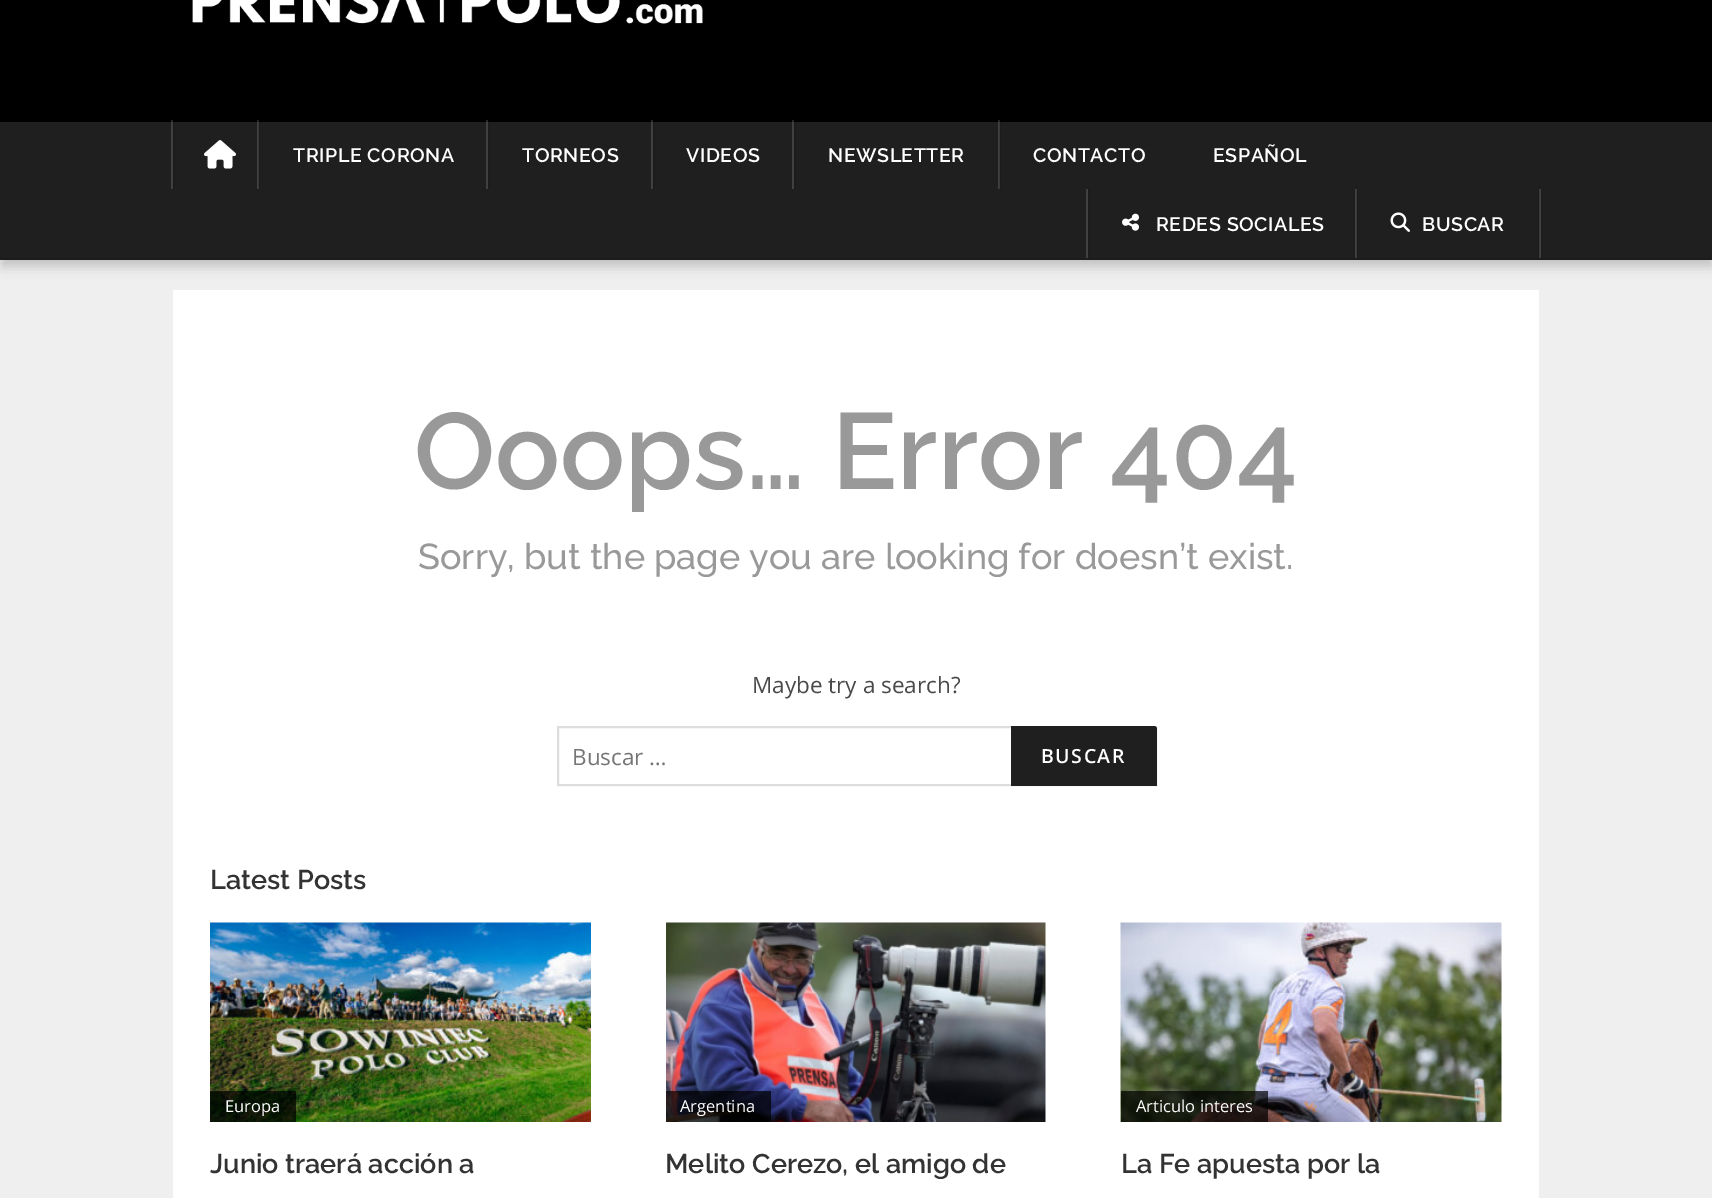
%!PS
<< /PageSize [1712 1198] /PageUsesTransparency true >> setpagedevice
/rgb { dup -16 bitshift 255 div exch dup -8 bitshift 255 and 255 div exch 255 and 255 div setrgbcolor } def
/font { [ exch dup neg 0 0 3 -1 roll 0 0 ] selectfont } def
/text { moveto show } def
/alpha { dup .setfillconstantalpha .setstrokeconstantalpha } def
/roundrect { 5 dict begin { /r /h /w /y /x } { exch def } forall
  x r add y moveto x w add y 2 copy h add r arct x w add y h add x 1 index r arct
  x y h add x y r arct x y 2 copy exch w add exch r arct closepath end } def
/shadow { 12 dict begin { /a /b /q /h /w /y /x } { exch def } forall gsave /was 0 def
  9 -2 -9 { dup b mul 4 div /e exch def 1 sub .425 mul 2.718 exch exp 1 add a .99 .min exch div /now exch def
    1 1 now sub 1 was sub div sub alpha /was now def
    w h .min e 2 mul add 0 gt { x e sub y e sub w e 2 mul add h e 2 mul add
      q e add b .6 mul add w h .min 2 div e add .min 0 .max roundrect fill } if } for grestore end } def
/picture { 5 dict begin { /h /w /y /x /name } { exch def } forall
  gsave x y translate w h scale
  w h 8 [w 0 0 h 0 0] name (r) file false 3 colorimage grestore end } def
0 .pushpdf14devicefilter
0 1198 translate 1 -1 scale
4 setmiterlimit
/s1 { /Raleway-SemiBold 108 font 16#999999 rgb } def
/s2 { /Raleway-Medium 36 font 16#999999 rgb } def
/s3 { /OpenSans-Regular 22.5 font 16#494949 rgb } def
/s4 { /OpenSans-Regular 22.5 font 16#757575 rgb } def
/s5 { /Raleway-SemiBold 27 font 16#333333 rgb } def
/s6 { /OpenSans-Regular 16.5 font 16#FFFFFF rgb } def
16#EFEFEF rgb
0 0 1712 1198 rectfill
16#000000 rgb
0 0 1712 122 rectfill
(pic1.raw) 192 0 511 24 picture
2 131 1710 135 0 6 0.2 shadow
16#1F1F1F rgb
0 122 1712 136 rectfill
16#1C1C1C rgb
1357 189 1 69 rectfill
1538 189 1 69 rectfill
0.15 alpha
16#FFFFFF rgb
171 120 2 69 rectfill
0.1 alpha
16#000000 rgb
173 120 2 69 rectfill
1 alpha
(pic2.raw) 204 140 32 29 picture
0.15 alpha
16#FFFFFF rgb
257 120 2 69 rectfill
0.1 alpha
16#000000 rgb
258 120 2 69 rectfill
/Raleway-SemiBold 19.5 font
1 alpha
16#FFFFFF rgb
293 162 moveto 0.6 0 (TRIPLE CORONA) ashow
0.15 alpha
486 120 2 69 rectfill
0.1 alpha
16#000000 rgb
488 120 2 69 rectfill
1 alpha
16#FFFFFF rgb
522 162 moveto 0.6 0 (TORNEOS) ashow
0.15 alpha
651 120 2 69 rectfill
0.1 alpha
16#000000 rgb
653 120 2 69 rectfill
1 alpha
16#FFFFFF rgb
686 162 moveto 0.6 0 (VIDEOS) ashow
0.15 alpha
792 120 2 69 rectfill
0.1 alpha
16#000000 rgb
794 120 2 69 rectfill
1 alpha
16#FFFFFF rgb
828 162 moveto 0.6 0 (NEWSLETTER) ashow
0.15 alpha
998 120 2 69 rectfill
0.1 alpha
16#000000 rgb
999 120 2 69 rectfill
1 alpha
16#FFFFFF rgb
1033 162 moveto 0.6 0 (CONTACTO) ashow
1213 162 moveto 0.6 0 (ESPAÑOL) ashow
16#414141 rgb
1086 189 2 69 rectfill
16#1C1C1C rgb
1088 189 2 69 rectfill
(pic3.raw) 1122 213 17 18 picture
16#FFFFFF rgb
1156 231 moveto 0.6 0 (REDES SOCIALES) ashow
16#414141 rgb
1355 189 1 69 rectfill
16#3B3B3B rgb
1356 189 1 69 rectfill
(pic4.raw) 1390 212 20 20 picture
16#FFFFFF rgb
1422 231 moveto 0.6 0 (BUSCAR) ashow
16#414141 rgb
1540 189 1 69 rectfill
16#3B3B3B rgb
1539 189 1 69 rectfill
16#1C1C1C rgb
0 258 1712 2 rectfill
16#FFFFFF rgb
173 290 1366 908 rectfill
s1
(Ooops… Error 404) 414 489 text
s2
(Sorry, but the page you are looking for doesn’t exist.) 418 569 text
s3
(Maybe try a search?) 752 693 text
16#DDDDDD rgb
2 setlinewidth
558 727 598 58 rectstroke
s4
(Buscar …) 572 765 text
gsave
557 726 600 60 rectclip
16#1F1F1F rgb
1011 726 moveto 1154 726 lineto 1155.5 726 1157 727.5 1157 729 curveto 1157 785 lineto 1157 786.5 1155.5 788 1154 788 curveto 1011 788 lineto closepath fill
grestore
/OpenSans-SemiBold 19.5 font
16#FFFFFF rgb
1041 763 moveto 1.5 0 (BUSCAR) ashow
s5
(Latest Posts) 210 889 text
(pic5.raw) 210 922 381 200 picture
0.7 alpha
16#000000 rgb
210 1091 86 31 rectfill
1 alpha
s6
(Europa) 225 1112 text
s5
(Junio traerá acción a) 210 1173 text
(pic6.raw) 666 922 380 200 picture
0.7 alpha
16#000000 rgb
666 1091 105 31 rectfill
1 alpha
s6
(Argentina) 680 1112 text
s5
(Melito Cerezo, el amigo de) 665 1173 text
(pic7.raw) 1120 922 382 200 picture
0.7 alpha
16#000000 rgb
1121 1091 147 31 rectfill
1 alpha
s6
(Articulo interes) 1136 1112 text
s5
(La Fe apuesta por la) 1121 1173 text
.poppdf14devicefilter showpage
